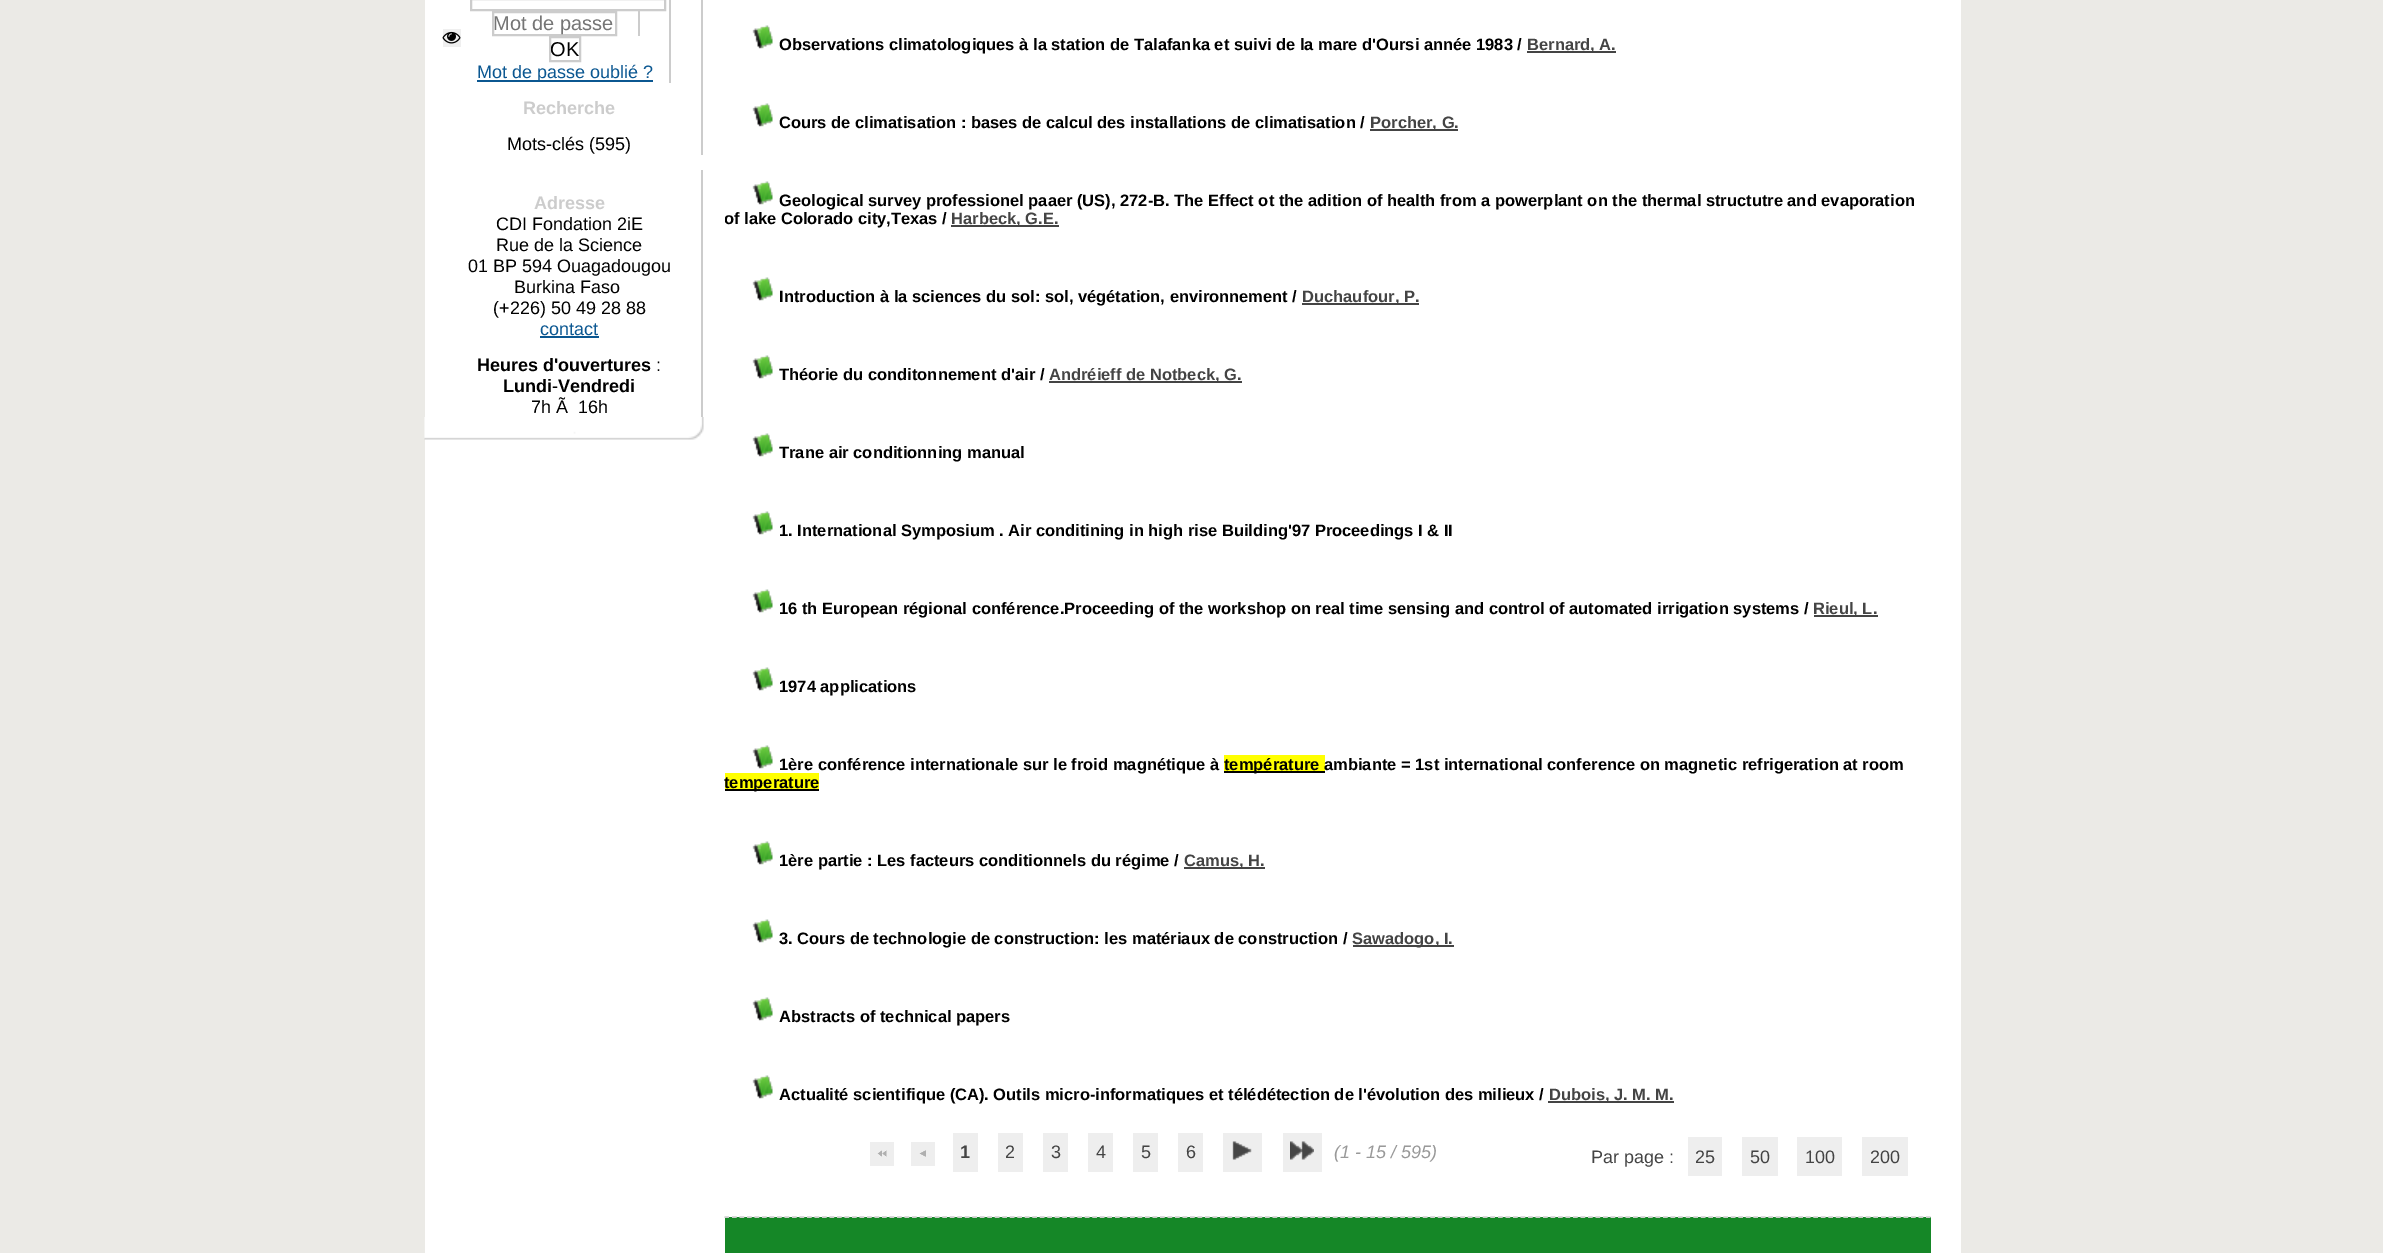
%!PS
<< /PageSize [2383 1253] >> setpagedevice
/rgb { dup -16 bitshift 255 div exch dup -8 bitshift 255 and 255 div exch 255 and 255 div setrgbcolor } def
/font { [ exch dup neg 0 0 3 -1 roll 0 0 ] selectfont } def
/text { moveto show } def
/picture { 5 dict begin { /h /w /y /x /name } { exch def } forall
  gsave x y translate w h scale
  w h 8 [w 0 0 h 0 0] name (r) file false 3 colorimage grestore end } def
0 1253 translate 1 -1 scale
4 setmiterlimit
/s1 { /LiberationSans-Bold 16.5 font 16#000000 rgb } def
/s2 { /LiberationSans-Regular 20 font 16#757575 rgb } def
/s3 { /LiberationSans-Regular 20 font 16#000000 rgb } def
/s4 { /LiberationSans-Regular 18 font 16#0B5791 rgb } def
/s5 { /LiberationSans-Bold 18 font 16#CCCCCC rgb } def
/s6 { /LiberationSans-Regular 18 font 16#000000 rgb } def
/s7 { /LiberationSans-Bold 18 font 16#000000 rgb } def
/s8 { /LiberationSans-Bold 16.5 font 16#444444 rgb } def
/s9 { /LiberationSans-Bold 18 font 16#444444 rgb } def
/s10 { /LiberationSans-Regular 18 font 16#444444 rgb } def
/s11 { /LiberationSans-Italic 18 font 16#999999 rgb } def
16#EBEAE6 rgb
0 0 2383 1253 rectfill
16#FFFFFF rgb
425 0 1536 1253 rectfill
s1
(of lake Colorado city,Texas /) 724 224 text
16#FFFFFF rgb
724 217 1 5 rectfill
(pic1.raw) 424 417 280 23 picture
16#CCCCCC rgb
701 0 2 155 rectfill
669 0 2 83 rectfill
2 setlinewidth
471 -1 194 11 rectstroke
638 11 2 25 rectfill
493 12 123 23 rectstroke
s2
(Mot de passe) 493 30 text
16#EFEFEF rgb
443 29 18 18 rectfill
(pic2.raw) 442 31 19 13 picture
16#CCCCCC rgb
550 37 30 24 rectstroke
s3
(OK) 550 56 text
16#0B5791 rgb
477 80 176 2 rectfill
s4
(Mot de passe oublié ?) 477 78 text
s5
(Recherche) 523 114 text
s6
(Mots-clés \(595\)) 507 150 text
16#CCCCCC rgb
701 170 2 247 rectfill
s5
(Adresse) 534 209 text
s6
(CDI Fondation 2iE) 496 230 text
(Rue de la Science) 496 251 text
(01 BP 594 Ouagadougou) 468 272 text
(Burkina Faso) 514 293 text
(\(+226\) 50 49 28 88) 493 314 text
s4
(contact) 540 335 text
540 336 59 2 rectfill
s7
(Heures d'ouvertures) 477 371 text
s6
(:) 656 371 text
s7
(Lundi) 503 392 text
s6
(-) 552 392 text
s7
(Vendredi) 558 392 text
s6
(7h Ã  16h) 531 413 text
(pic3.raw) 752 25 21 24 picture
s1
(Observations climatologiques à la station de Talafanka et suivi de la mare d'Oursi année 1983 /) 779 50 text
16#444444 rgb
1527 51 89 2 rectfill
(Bernard, A.) 1527 50 text
(pic3.raw) 752 103 21 24 picture
s1
(Cours de climatisation : bases de calcul des installations de climatisation /) 779 128 text
16#444444 rgb
1370 129 88 2 rectfill
(Porcher, G.) 1370 128 text
(pic3.raw) 752 181 21 24 picture
s1
(Geological survey professionel paaer \(US\), 272-B. The Effect ot the adition of health from a powerplant on the thermal structutre and evaporation) 779 206 text
16#444444 rgb
951 225 108 2 rectfill
(Harbeck, G.E.) 951 224 text
(pic3.raw) 752 277 21 24 picture
s1
(Introduction à la sciences du sol: sol, végétation, environnement /) 779 302 text
16#444444 rgb
1302 303 117 2 rectfill
(Duchaufour, P.) 1302 302 text
(pic3.raw) 752 355 21 24 picture
s1
(Théorie du conditonnement d'air /) 779 380 text
16#444444 rgb
1049 381 193 2 rectfill
(Andréieff de Notbeck, G.) 1049 380 text
(pic3.raw) 752 433 21 24 picture
s1
(Trane air conditionning manual) 779 458 text
(pic3.raw) 752 511 21 24 picture
(1. International Symposium . Air conditining in high rise Building'97 Proceedings I & II) 779 536 text
(pic3.raw) 752 589 21 24 picture
(16 th European régional conférence.Proceeding of the workshop on real time sensing and control of automated irrigation systems /) 779 614 text
16#444444 rgb
1814 615 64 2 rectfill
(Rieul, L.) 1813 614 text
(pic3.raw) 752 667 21 24 picture
s1
(1974 applications) 779 692 text
(pic3.raw) 752 745 21 24 picture
(1ère conférence internationale sur le froid magnétique à) 779 770 text
16#FFFF00 rgb
1224 755 101 16 rectfill
16#000000 rgb
1224 771 101 2 rectfill
(température ambiante = 1st international conference on magnetic refrigeration at room) 1224 770 text
16#FFFF00 rgb
725 773 94 16 rectfill
16#000000 rgb
725 789 94 2 rectfill
(temperature) 724 788 text
(pic3.raw) 752 841 21 24 picture
(1ère partie : Les facteurs conditionnels du régime /) 779 866 text
16#444444 rgb
1184 867 81 2 rectfill
(Camus, H.) 1184 866 text
(pic3.raw) 752 919 21 24 picture
s1
(3. Cours de technologie de construction: les matériaux de construction /) 779 944 text
16#444444 rgb
1353 945 101 2 rectfill
(Sawadogo, I.) 1352 944 text
(pic3.raw) 752 997 21 24 picture
s1
(Abstracts of technical papers) 779 1022 text
(pic3.raw) 752 1075 21 24 picture
(Actualité scientifique \(CA\). Outils micro-informatiques et télédétection de l'évolution des milieux /) 779 1100 text
16#444444 rgb
1548 1101 126 2 rectfill
(Dubois, J. M. M.) 1549 1100 text
16#EEEEEE rgb
870 1142 24 24 rectfill
(pic4.raw) 877 1150 10 7 picture
911 1142 24 24 rectfill
(pic5.raw) 919 1150 7 7 picture
953 1133 25 39 rectfill
s9
(1) 960 1158 text
16#EEEEEE rgb
998 1133 25 39 rectfill
s10
(2) 1005 1158 text
16#EEEEEE rgb
1043 1133 25 39 rectfill
s10
(3) 1051 1158 text
16#EEEEEE rgb
1088 1133 25 39 rectfill
s10
(4) 1096 1158 text
16#EEEEEE rgb
1133 1133 25 39 rectfill
s10
(5) 1141 1158 text
16#EEEEEE rgb
1178 1133 25 39 rectfill
s10
(6) 1186 1158 text
16#EEEEEE rgb
1223 1133 39 39 rectfill
(pic6.raw) 1232 1141 20 19 picture
1283 1133 39 39 rectfill
(pic7.raw) 1290 1141 24 19 picture
s11
(\(1 - 15 / 595\)) 1334 1158 text
s10
(Par page :) 1591 1163 text
16#EEEEEE rgb
1688 1137 34 39 rectfill
s10
(25) 1695 1163 text
16#EEEEEE rgb
1742 1137 36 39 rectfill
s10
(50) 1750 1163 text
16#EEEEEE rgb
1797 1137 45 39 rectfill
s10
(100) 1805 1163 text
16#EEEEEE rgb
1862 1137 46 39 rectfill
s10
(200) 1870 1163 text
16#158727 rgb
725 1217 1206 36 rectfill
16#CCCCCC rgb
1.5 setlinewidth
[4.5 3.01] 0 setdash
724.5 1217 moveto 1930.5 1217 lineto stroke
showpage
